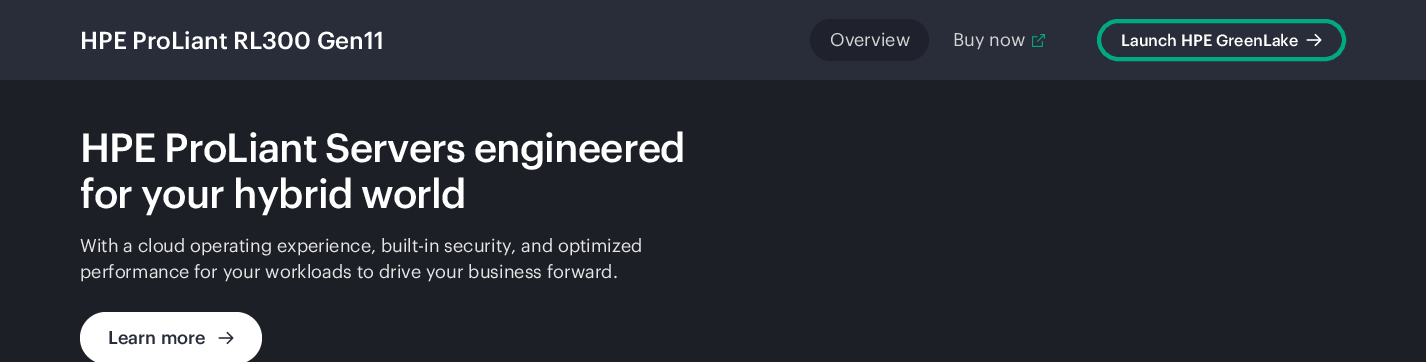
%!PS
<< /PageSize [1426 362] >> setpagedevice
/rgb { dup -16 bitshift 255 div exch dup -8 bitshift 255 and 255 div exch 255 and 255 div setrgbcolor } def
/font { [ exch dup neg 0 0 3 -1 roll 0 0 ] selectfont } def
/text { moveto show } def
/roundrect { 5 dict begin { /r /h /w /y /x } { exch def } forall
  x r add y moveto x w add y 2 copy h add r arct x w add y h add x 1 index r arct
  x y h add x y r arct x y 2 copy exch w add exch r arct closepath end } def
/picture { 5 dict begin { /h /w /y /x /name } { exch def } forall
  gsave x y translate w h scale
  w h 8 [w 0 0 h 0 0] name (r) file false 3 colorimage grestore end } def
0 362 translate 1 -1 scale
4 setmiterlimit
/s1 { /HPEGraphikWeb-Medium 24 font 16#FFFFFF rgb } def
/s2 { /HPEGraphikWeb-Regular 18 font 16#D4D4D4 rgb } def
/s3 { /HPEGraphikWeb-Medium 16 font 16#FFFFFF rgb } def
/s4 { /HPEGraphikWeb-Regular 18 font 16#E5E5E5 rgb } def
/s5 { /HPEGraphikWeb-Medium 18 font 16#292D3A rgb } def
16#1D1F27 rgb
0 0 1426 362 rectfill
16#292D3A rgb
0 0 1426 80 rectfill
s1
(HPE ProLiant RL300 Gen11) 80 49 text
16#1F222D rgb
810 19 119 42 21 roundrect fill
s2
(Overview) 830 46 text
(Buy now) 953 46 text
(pic1.raw) 1032 34 13 13 picture
16#01A982 rgb
4 setlinewidth
1099 21 245 38 19 roundrect stroke
s3
(Launch HPE GreenLake) 1121 46 text
(pic2.raw) 1306 33 16 14 picture
/HPEGraphikWeb-Medium 40 font
80 162 moveto -0.8 0 (HPE ProLiant Servers engineered) ashow
80 208 moveto -0.8 0 (for your hybrid world) ashow
s4
(With a cloud operating experience, built-in security, and optimized) 80 252 text
(performance for your workloads to drive your business forward.) 80 278 text
16#FFFFFF rgb
80 312 182 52 26 roundrect fill
s5
(Learn more) 108 344 text
(pic3.raw) 218 331 16 14 picture
showpage
